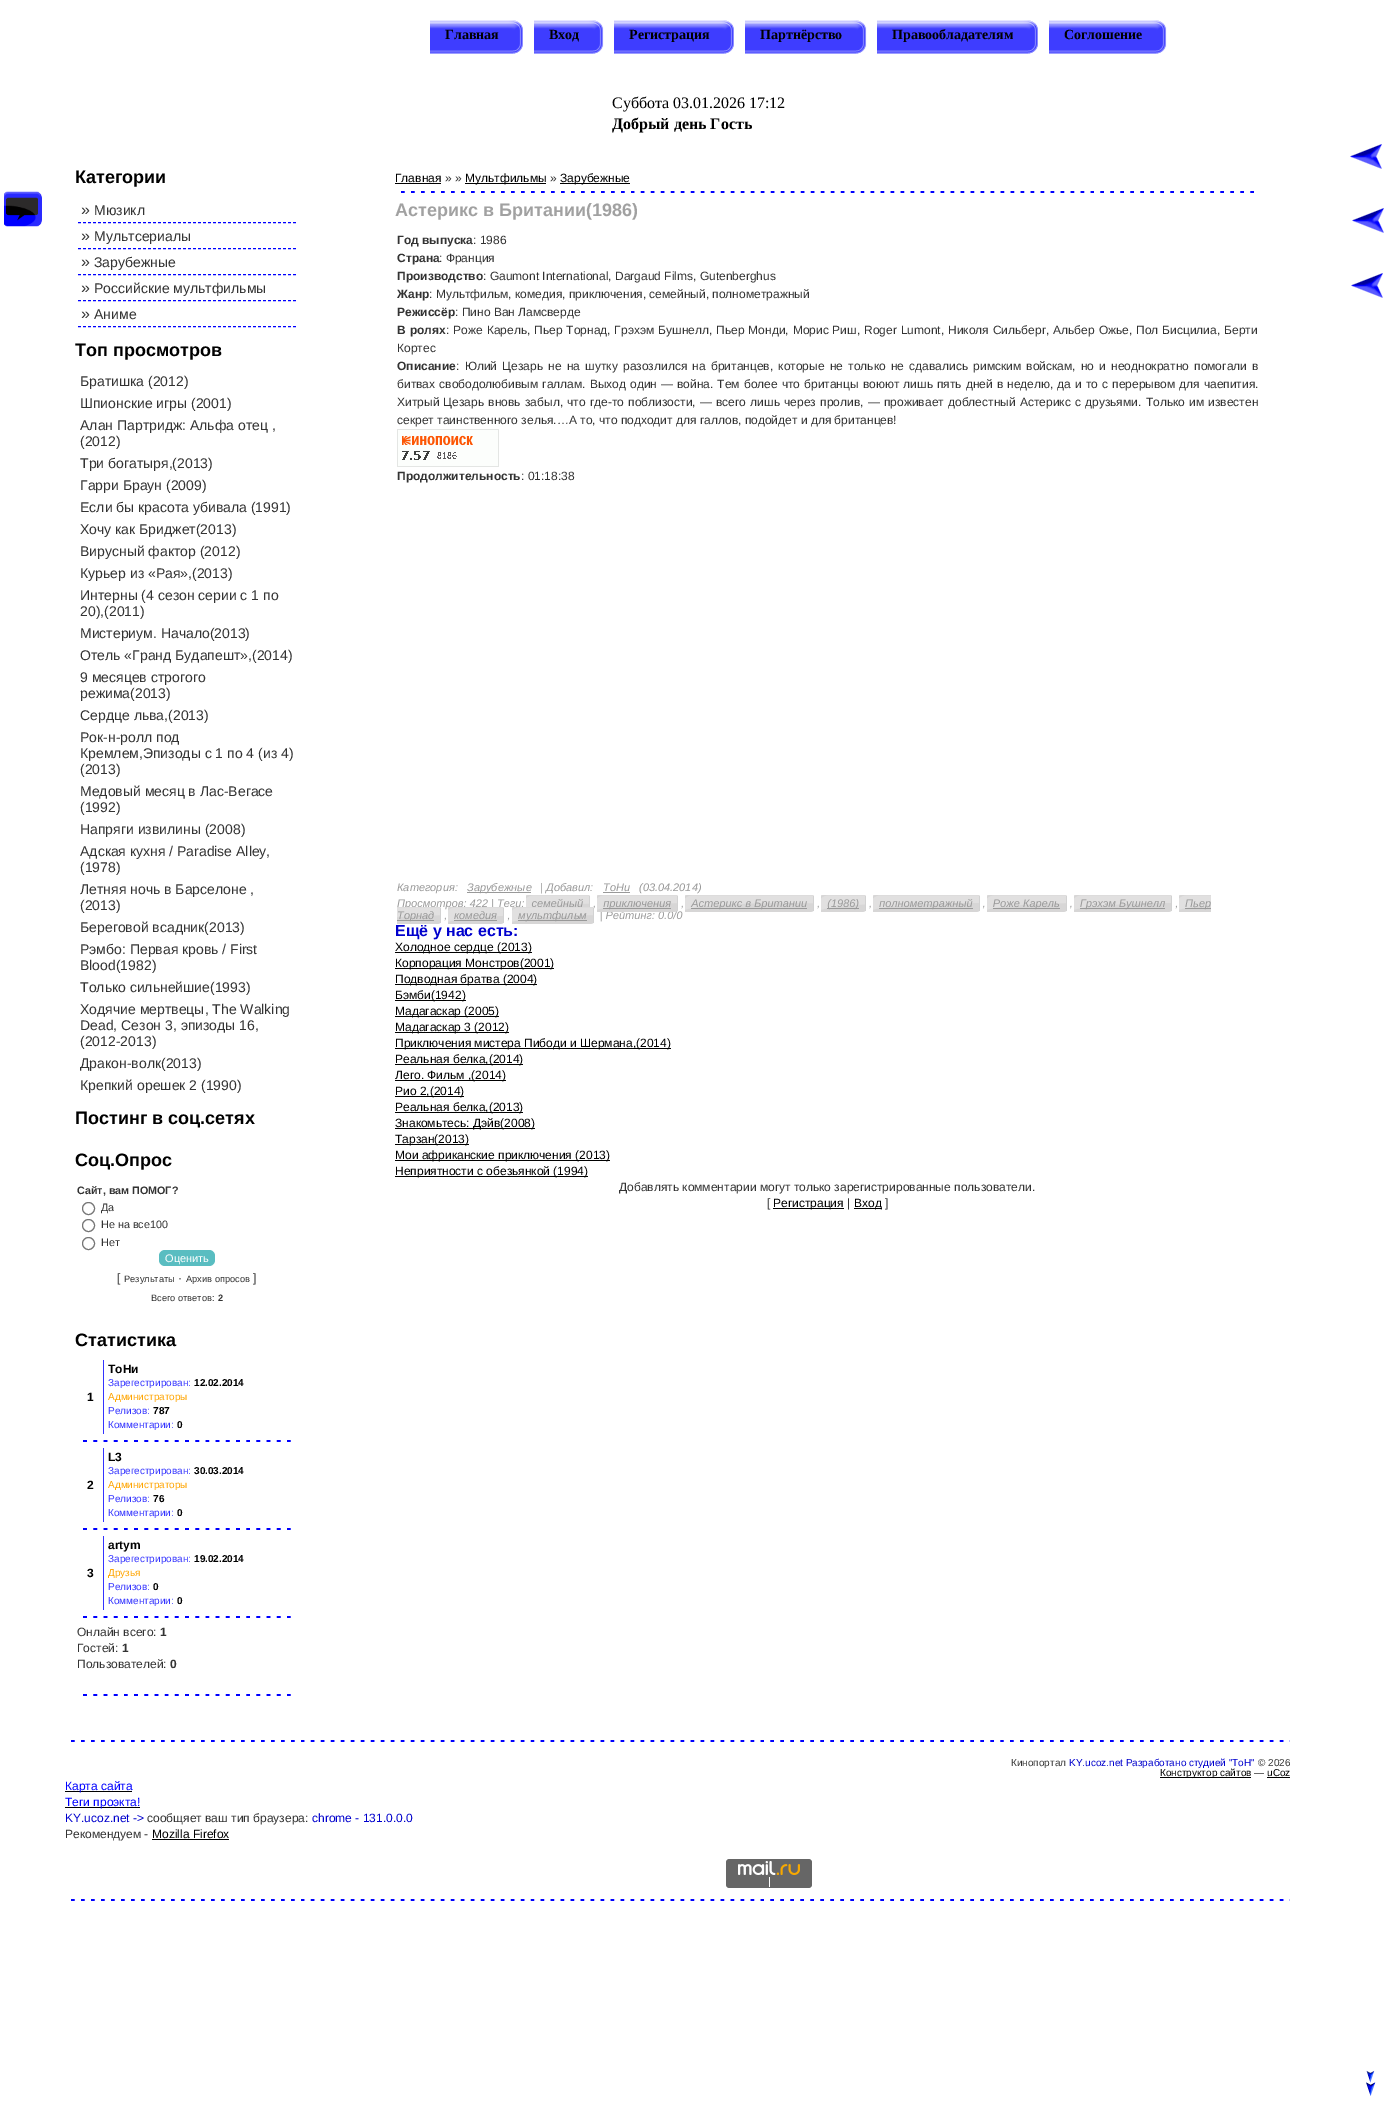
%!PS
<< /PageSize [1390 2119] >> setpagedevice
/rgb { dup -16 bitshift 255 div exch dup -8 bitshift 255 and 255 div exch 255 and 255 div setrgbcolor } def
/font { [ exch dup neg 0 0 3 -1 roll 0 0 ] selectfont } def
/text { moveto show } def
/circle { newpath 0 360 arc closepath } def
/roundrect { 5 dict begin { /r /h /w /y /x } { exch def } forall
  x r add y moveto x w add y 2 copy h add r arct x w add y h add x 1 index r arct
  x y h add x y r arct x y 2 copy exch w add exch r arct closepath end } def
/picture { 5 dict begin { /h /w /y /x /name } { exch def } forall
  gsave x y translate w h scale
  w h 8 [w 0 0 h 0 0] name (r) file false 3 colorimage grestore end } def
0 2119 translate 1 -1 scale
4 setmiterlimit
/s1 { /LiberationSerif-Bold 14 font 16#000000 rgb } def
/s2 { /LiberationSerif-Regular 16 font 16#000000 rgb } def
/s3 { /LiberationSerif-Bold 16 font 16#000000 rgb } def
/s4 { /LiberationSans-Bold 18 font 16#000000 rgb } def
/s5 { /LiberationSans-Regular 16 font 16#333333 rgb } def
/s6 { /LiberationSans-Regular 14 font 16#333333 rgb } def
/s7 { /LiberationSans-Bold 10.75 font 16#333333 rgb } def
/s8 { /LiberationSans-Regular 10.75 font 16#333333 rgb } def
/s9 { /LiberationSans-Regular 11 font 16#FFFFFF rgb } def
/s10 { /LiberationSans-Regular 12 font 16#333333 rgb } def
/s11 { /LiberationSans-Regular 9.25 font 16#333333 rgb } def
/s12 { /LiberationSans-Bold 9.25 font 16#333333 rgb } def
/s13 { /LiberationSans-Bold 12 font 16#000000 rgb } def
/s14 { /LiberationSans-Regular 10 font 16#3333FF rgb } def
/s15 { /LiberationSans-Bold 10 font 16#000000 rgb } def
/s16 { /LiberationSans-Regular 10 font 16#FFA500 rgb } def
/s17 { /LiberationSans-Bold 12 font 16#333333 rgb } def
/s18 { /LiberationSans-Regular 12 font 16#000000 rgb } def
/s19 { /LiberationSans-Bold 18 font 16#A1A1A1 rgb } def
/s20 { /LiberationSans-Italic 11 font 16#999999 rgb } def
/s21 { /LiberationSans-Bold 16 font 16#0000CD rgb } def
/s22 { /LiberationSans-Regular 10 font 16#333333 rgb } def
/s23 { /LiberationSans-Regular 10 font 16#0000CD rgb } def
/s24 { /LiberationSans-Regular 10 font 16#000000 rgb } def
/s25 { /LiberationSans-Regular 12 font 16#0000FF rgb } def
/s26 { /LiberationSans-Regular 12 font 16#0000CD rgb } def
16#FFFFFF rgb
0 0 1390 2119 rectfill
(pic1.raw) 4 191 38 36 picture
(pic2.raw) 430 20 93 34 picture
s1
(Главная) 445 39 text
(pic3.raw) 534 20 70 34 picture
(Вход) 549 39 text
(pic4.raw) 614 20 120 34 picture
(Регистрация) 629 39 text
(pic5.raw) 745 20 122 34 picture
(Партнёрство) 760 39 text
(pic6.raw) 877 20 161 34 picture
(Правообладателям) 892 39 text
(pic7.raw) 1049 20 118 34 picture
(Соглошение) 1064 39 text
s2
(Суббота 03.01.2026 17:12) 612 108 text
s3
(Добрый день Гость) 612 129 text
(pic8.raw) 1350 144 32 25 picture
s4
(Категории) 75 183 text
16#0000FF rgb
[3 2] 0 setdash
78 222.5 moveto 296 222.5 lineto stroke
s5
(») 81 215 text
s6
(Мюзикл) 94 215 text
16#0000FF rgb
78 248.5 moveto 296 248.5 lineto stroke
s5
(») 81 241 text
s6
(Мультсериалы) 94 241 text
16#0000FF rgb
78 274.5 moveto 296 274.5 lineto stroke
s5
(») 81 267 text
s6
(Зарубежные) 94 267 text
16#0000FF rgb
78 300.5 moveto 296 300.5 lineto stroke
s5
(») 81 293 text
s6
(Российские мультфильмы) 94 293 text
16#0000FF rgb
78 326.5 moveto 296 326.5 lineto stroke
s5
(») 81 319 text
s6
(Аниме) 94 319 text
s4
(Топ просмотров) 75 356 text
s6
(Братишка \(2012\)) 80 386 text
(Шпионские игры \(2001\)) 80 408 text
(Алан Партридж: Альфа отец ,) 80 430 text
(\(2012\)) 80 446 text
(Три богатыря,\(2013\)) 80 468 text
(Гарри Браун \(2009\)) 80 490 text
(Если бы красота убивала \(1991\)) 80 512 text
(Хочу как Бриджет\(2013\)) 80 534 text
(Вирусный фактор \(2012\)) 80 556 text
(Курьер из «Рая»,\(2013\)) 80 578 text
(Интерны \(4 сезон серии с 1 по) 80 600 text
(20\),\(2011\)) 80 616 text
(Мистериум. Начало\(2013\)) 80 638 text
(Отель «Гранд Будапешт»,\(2014\)) 80 660 text
(9 месяцев строгого) 80 682 text
(режима\(2013\)) 80 698 text
(Сердце льва,\(2013\)) 80 720 text
(Рок-н-ролл под) 80 742 text
(Кремлем,Эпизоды с 1 по 4 \(из 4\)) 80 758 text
(\(2013\)) 80 774 text
(Медовый месяц в Лас-Вегасе) 80 796 text
(\(1992\)) 80 812 text
(Напряги извилины \(2008\)) 80 834 text
(Адская кухня / Paradise Alley,) 80 856 text
(\(1978\)) 80 872 text
(Летняя ночь в Барселоне ,) 80 894 text
(\(2013\)) 80 910 text
(Береговой всадник\(2013\)) 80 932 text
(Рэмбо: Первая кровь / First) 80 954 text
(Blood\(1982\)) 80 970 text
(Только сильнейшие\(1993\)) 80 992 text
(Ходячие мертвецы, The Walking) 80 1014 text
(Dead, Сезон 3, эпизоды 16,) 80 1030 text
(\(2012-2013\)) 80 1046 text
(Дракон-волк\(2013\)) 80 1068 text
(Крепкий орешек 2 \(1990\)) 80 1090 text
s4
(Постинг в соц.сетях) 75 1124 text
(Соц.Опрос) 75 1166 text
s7
(Сайт, вам ПОМОГ?) 77 1194 text
16#767676 rgb
[] 0 setdash
88.5 1208.5 6 circle stroke
s8
(Да) 101 1211 text
16#767676 rgb
88.5 1225.5 6 circle stroke
s8
(Не на все100) 101 1228 text
16#767676 rgb
88.5 1243.5 6 circle stroke
s8
(Нет) 101 1246 text
16#59BDC1 rgb
159 1250 56 16 6 roundrect fill
s9
(Оценить) 165 1262 text
s10
([) 117 1282 text
s11
(Результаты) 124 1282 text
s10
(·) 178 1282 text
s11
(Архив опросов) 186 1282 text
s10
(]) 253 1282 text
s11
(Всего ответов:) 151 1301 text
s12
(2) 218 1301 text
s4
(Статистика) 75 1346 text
16#3333FF rgb
103 1360 1 74 rectfill
s13
(1) 87 1401 text
(ТоНи) 108 1373 text
s14
(Зарегестрирован:) 108 1386 text
s15
(12.02.2014) 194 1386 text
s16
(Администраторы) 108 1400 text
s14
(Релизов:) 108 1414 text
s15
(787) 153 1414 text
s14
(Комментарии:) 108 1428 text
s15
(0) 177 1428 text
16#0000FF rgb
77 1440 220 2 rectfill
16#FFFFFF rgb
2 setlinewidth
[6 4.19] 0 setdash
77 1441 moveto 297 1441 lineto stroke
16#3333FF rgb
103 1448 1 74 rectfill
s13
(2) 87 1489 text
(L3) 108 1461 text
s14
(Зарегестрирован:) 108 1474 text
s15
(30.03.2014) 194 1474 text
s16
(Администраторы) 108 1488 text
s14
(Релизов:) 108 1502 text
s15
(76) 153 1502 text
s14
(Комментарии:) 108 1516 text
s15
(0) 177 1516 text
16#0000FF rgb
77 1528 220 2 rectfill
16#FFFFFF rgb
77 1529 moveto 297 1529 lineto stroke
16#3333FF rgb
103 1536 1 74 rectfill
s13
(3) 87 1577 text
(artym) 108 1549 text
s14
(Зарегестрирован:) 108 1562 text
s15
(19.02.2014) 194 1562 text
s16
(Друзья) 108 1576 text
s14
(Релизов:) 108 1590 text
s15
(0) 153 1590 text
s14
(Комментарии:) 108 1604 text
s15
(0) 177 1604 text
16#0000FF rgb
77 1616 220 2 rectfill
16#FFFFFF rgb
77 1617 moveto 297 1617 lineto stroke
s10
(Онлайн всего:) 77 1636 text
s17
(1) 160 1636 text
s10
(Гостей:) 77 1652 text
s17
(1) 122 1652 text
s10
(Пользователей:) 77 1668 text
s17
(0) 170 1668 text
16#0000FF rgb
77 1694 220 2 rectfill
16#FFFFFF rgb
77 1695 moveto 297 1695 lineto stroke
s18
(Главная) 395 182 text
395 183 46 1 rectfill
s10
(» ») 445 182 text
16#000000 rgb
465 183 81 1 rectfill
(Мультфильмы) 465 182 text
s10
(») 550 182 text
16#000000 rgb
560 183 70 1 rectfill
(Зарубежные) 560 182 text
16#0000FF rgb
395 191 865 2 rectfill
16#FFFFFF rgb
[6 3.99] 0 setdash
395 192 moveto 1260 192 lineto stroke
s19
(Астерикс в Британии\(1986\)) 395 216 text
s17
(Год выпуска) 397 244 text
s10
(: 1986) 473 244 text
s17
(Страна) 397 262 text
s10
(: Франция) 439 262 text
s17
(Производство) 397 280 text
s10
(: Gaumont International, Dargaud Films, Gutenberghus) 483 280 text
s17
(Жанр) 397 298 text
s10
(: Мультфильм, комедия, приключения, семейный, полнометражный) 429 298 text
s17
(Режиссёр) 397 316 text
s10
(: Пино Ван Ламсверде) 455 316 text
/LiberationSans-Bold 12 font
397 334 moveto 0.6 0 32 (В ролях) widthshow
/LiberationSans-Regular 12 font
446 334 moveto 0.6 0 32 (: Роже Карель, Пьер Торнад, Грэхэм Бушнелл, Пьер Монди, Морис Риш, Roger Lumont, Николя Сильберг, Альбер Ожье, Пол Бисцилиа, Берти) widthshow
(Кортес) 397 352 text
s17
(Описание) 397 370 text
/LiberationSans-Regular 12 font
456 370 moveto 1.9 0 32 (: Юлий Цезарь не на шутку разозлился на британцев, которые не только не сдавались римским войскам, но и неоднократно помогали в) widthshow
397 388 moveto 0.7 0 32 (битвах свободолюбивым галлам. Выход один — война. Тем более что британцы воюют лишь пять дней в неделю, да и то с перерывом для чаепития.) widthshow
397 406 moveto 0.9 0 32 (Хитрый Цезарь вновь забыл, что где-то поблизости, — всего лишь через пролив, — проживает доблестный Астерикс с друзьями. Только им известен) widthshow
(секрет таинственного зелья.…А то, что подходит для галлов, подойдет и для британцев!) 397 424 text
(pic9.raw) 397 429 102 38 picture
s17
(Продолжительность) 397 480 text
s10
(: 01:18:38) 521 480 text
s20
(Категория:) 397 891 text
467 892 64 1 rectfill
(Зарубежные) 467 891 text
(| Добавил:) 540 891 text
(ТоНи) 603 891 text
603 892 27 1 rectfill
(\(03.04.2014\)) 639 891 text
(pic11.raw) 526 895 64 12 picture
(| Рейтинг: 0.0/0) 600 919 text
(pic12.raw) 597 895 81 17 picture
(pic13.raw) 685 895 129 17 picture
(pic14.raw) 821 895 45 17 picture
(pic15.raw) 873 895 107 17 picture
(pic16.raw) 987 895 80 17 picture
(pic17.raw) 1074 895 98 17 picture
(Просмотров: 422 | Теги:) 397 907 text
(семейный) 532 907 text
16#D2D2D2 rgb
589 896 1 15 rectfill
s20
(,) 593 907 text
603 908 68 1 rectfill
(приключения) 603 907 text
(,) 681 907 text
16#D2D2D2 rgb
677 896 1 15 rectfill
16#999999 rgb
691 908 116 1 rectfill
(Астерикс в Британии) 691 907 text
16#D2D2D2 rgb
813 896 1 15 rectfill
s20
(,) 817 907 text
827 908 32 1 rectfill
(\(1986\)) 827 907 text
16#D2D2D2 rgb
865 896 1 15 rectfill
s20
(,) 869 907 text
879 908 94 1 rectfill
(полнометражный) 879 907 text
16#D2D2D2 rgb
979 896 1 15 rectfill
s20
(,) 983 907 text
993 908 67 1 rectfill
(Роже Карель) 993 907 text
16#D2D2D2 rgb
1066 896 1 15 rectfill
s20
(,) 1070 907 text
1080 908 85 1 rectfill
(Грэхэм Бушнелл) 1080 907 text
16#D2D2D2 rgb
1171 896 1 15 rectfill
s20
(,) 1175 907 text
(,) 444 919 text
(,) 507 919 text
(pic10.raw) 397 895 814 29 picture
1185 908 26 1 rectfill
(Пьер) 1185 907 text
397 920 37 1 rectfill
(Торнад) 397 919 text
16#D2D2D2 rgb
440 908 1 15 rectfill
(pic18.raw) 448 907 56 17 picture
(pic19.raw) 512 907 82 17 picture
s20
(комедия) 454 919 text
16#D2D2D2 rgb
503 908 1 15 rectfill
16#999999 rgb
454 920 43 1 rectfill
518 920 69 1 rectfill
(мультфильм) 518 919 text
16#D2D2D2 rgb
593 908 1 15 rectfill
s21
(Ещё у нас есть:) 395 936 text
16#000000 rgb
395 952 137 1 rectfill
s18
(Холодное сердце \(2013\)) 395 951 text
395 968 159 1 rectfill
(Корпорация Монстров\(2001\)) 395 967 text
395 984 142 1 rectfill
(Подводная братва \(2004\)) 395 983 text
395 1000 71 1 rectfill
(Бэмби\(1942\)) 395 999 text
395 1016 104 1 rectfill
(Мадагаскар \(2005\)) 395 1015 text
395 1032 114 1 rectfill
(Мадагаскар 3 \(2012\)) 395 1031 text
395 1048 276 1 rectfill
(Приключения мистера Пибоди и Шермана,\(2014\)) 395 1047 text
395 1064 128 1 rectfill
(Реальная белка,\(2014\)) 395 1063 text
395 1080 111 1 rectfill
(Лего. Фильм ,\(2014\)) 395 1079 text
395 1096 69 1 rectfill
(Рио 2,\(2014\)) 395 1095 text
395 1112 128 1 rectfill
(Реальная белка,\(2013\)) 395 1111 text
395 1128 140 1 rectfill
(Знакомьтесь: Дэйв\(2008\)) 395 1127 text
395 1144 74 1 rectfill
(Тарзан\(2013\)) 395 1143 text
395 1160 215 1 rectfill
(Мои африканские приключения \(2013\)) 395 1159 text
395 1176 193 1 rectfill
(Неприятности с обезьянкой \(1994\)) 395 1175 text
s10
(Добавлять комментарии могут только зарегистрированные пользователи.) 619 1191 text
([) 767 1207 text
16#000000 rgb
773 1208 71 1 rectfill
(Регистрация) 773 1207 text
s10
(|) 847 1207 text
16#000000 rgb
854 1208 28 1 rectfill
(Вход) 854 1207 text
s10
(]) 885 1207 text
16#0000FF rgb
65 1740 1225 2 rectfill
16#FFFFFF rgb
65 1741 moveto 1290 1741 lineto stroke
s22
(Кинопортал) 1011 1766 text
s23
(KY.ucoz.net Разработано студией "ТоН") 1069 1766 text
s22
(© 2026) 1258 1766 text
16#000000 rgb
1160 1777 91 1 rectfill
(Конструктор сайтов) 1160 1776 text
s22
(—) 1254 1776 text
s24
(uCoz) 1267 1776 text
1267 1777 23 1 rectfill
65 1791 67 1 rectfill
s25
(Карта сайта) 65 1790 text
16#000000 rgb
65 1807 75 1 rectfill
s25
(Теги проэкта!) 65 1806 text
s26
(KY.ucoz.net ->) 65 1822 text
s10
(сообщяет ваш тип браузера:) 147 1822 text
s26
(chrome - 131.0.0.0) 312 1822 text
s10
(Рекомендуем -) 65 1838 text
s18
(Mozilla Firefox) 152 1838 text
152 1839 77 1 rectfill
(pic20.raw) 726 1859 86 29 picture
16#0000FF rgb
65 1899 1225 2 rectfill
16#FFFFFF rgb
65 1900 moveto 1290 1900 lineto stroke
(pic21.raw) 1352 208 32 25 picture
(pic22.raw) 1351 273 32 25 picture
(pic23.raw) 1366 2070 10 26 picture
showpage
